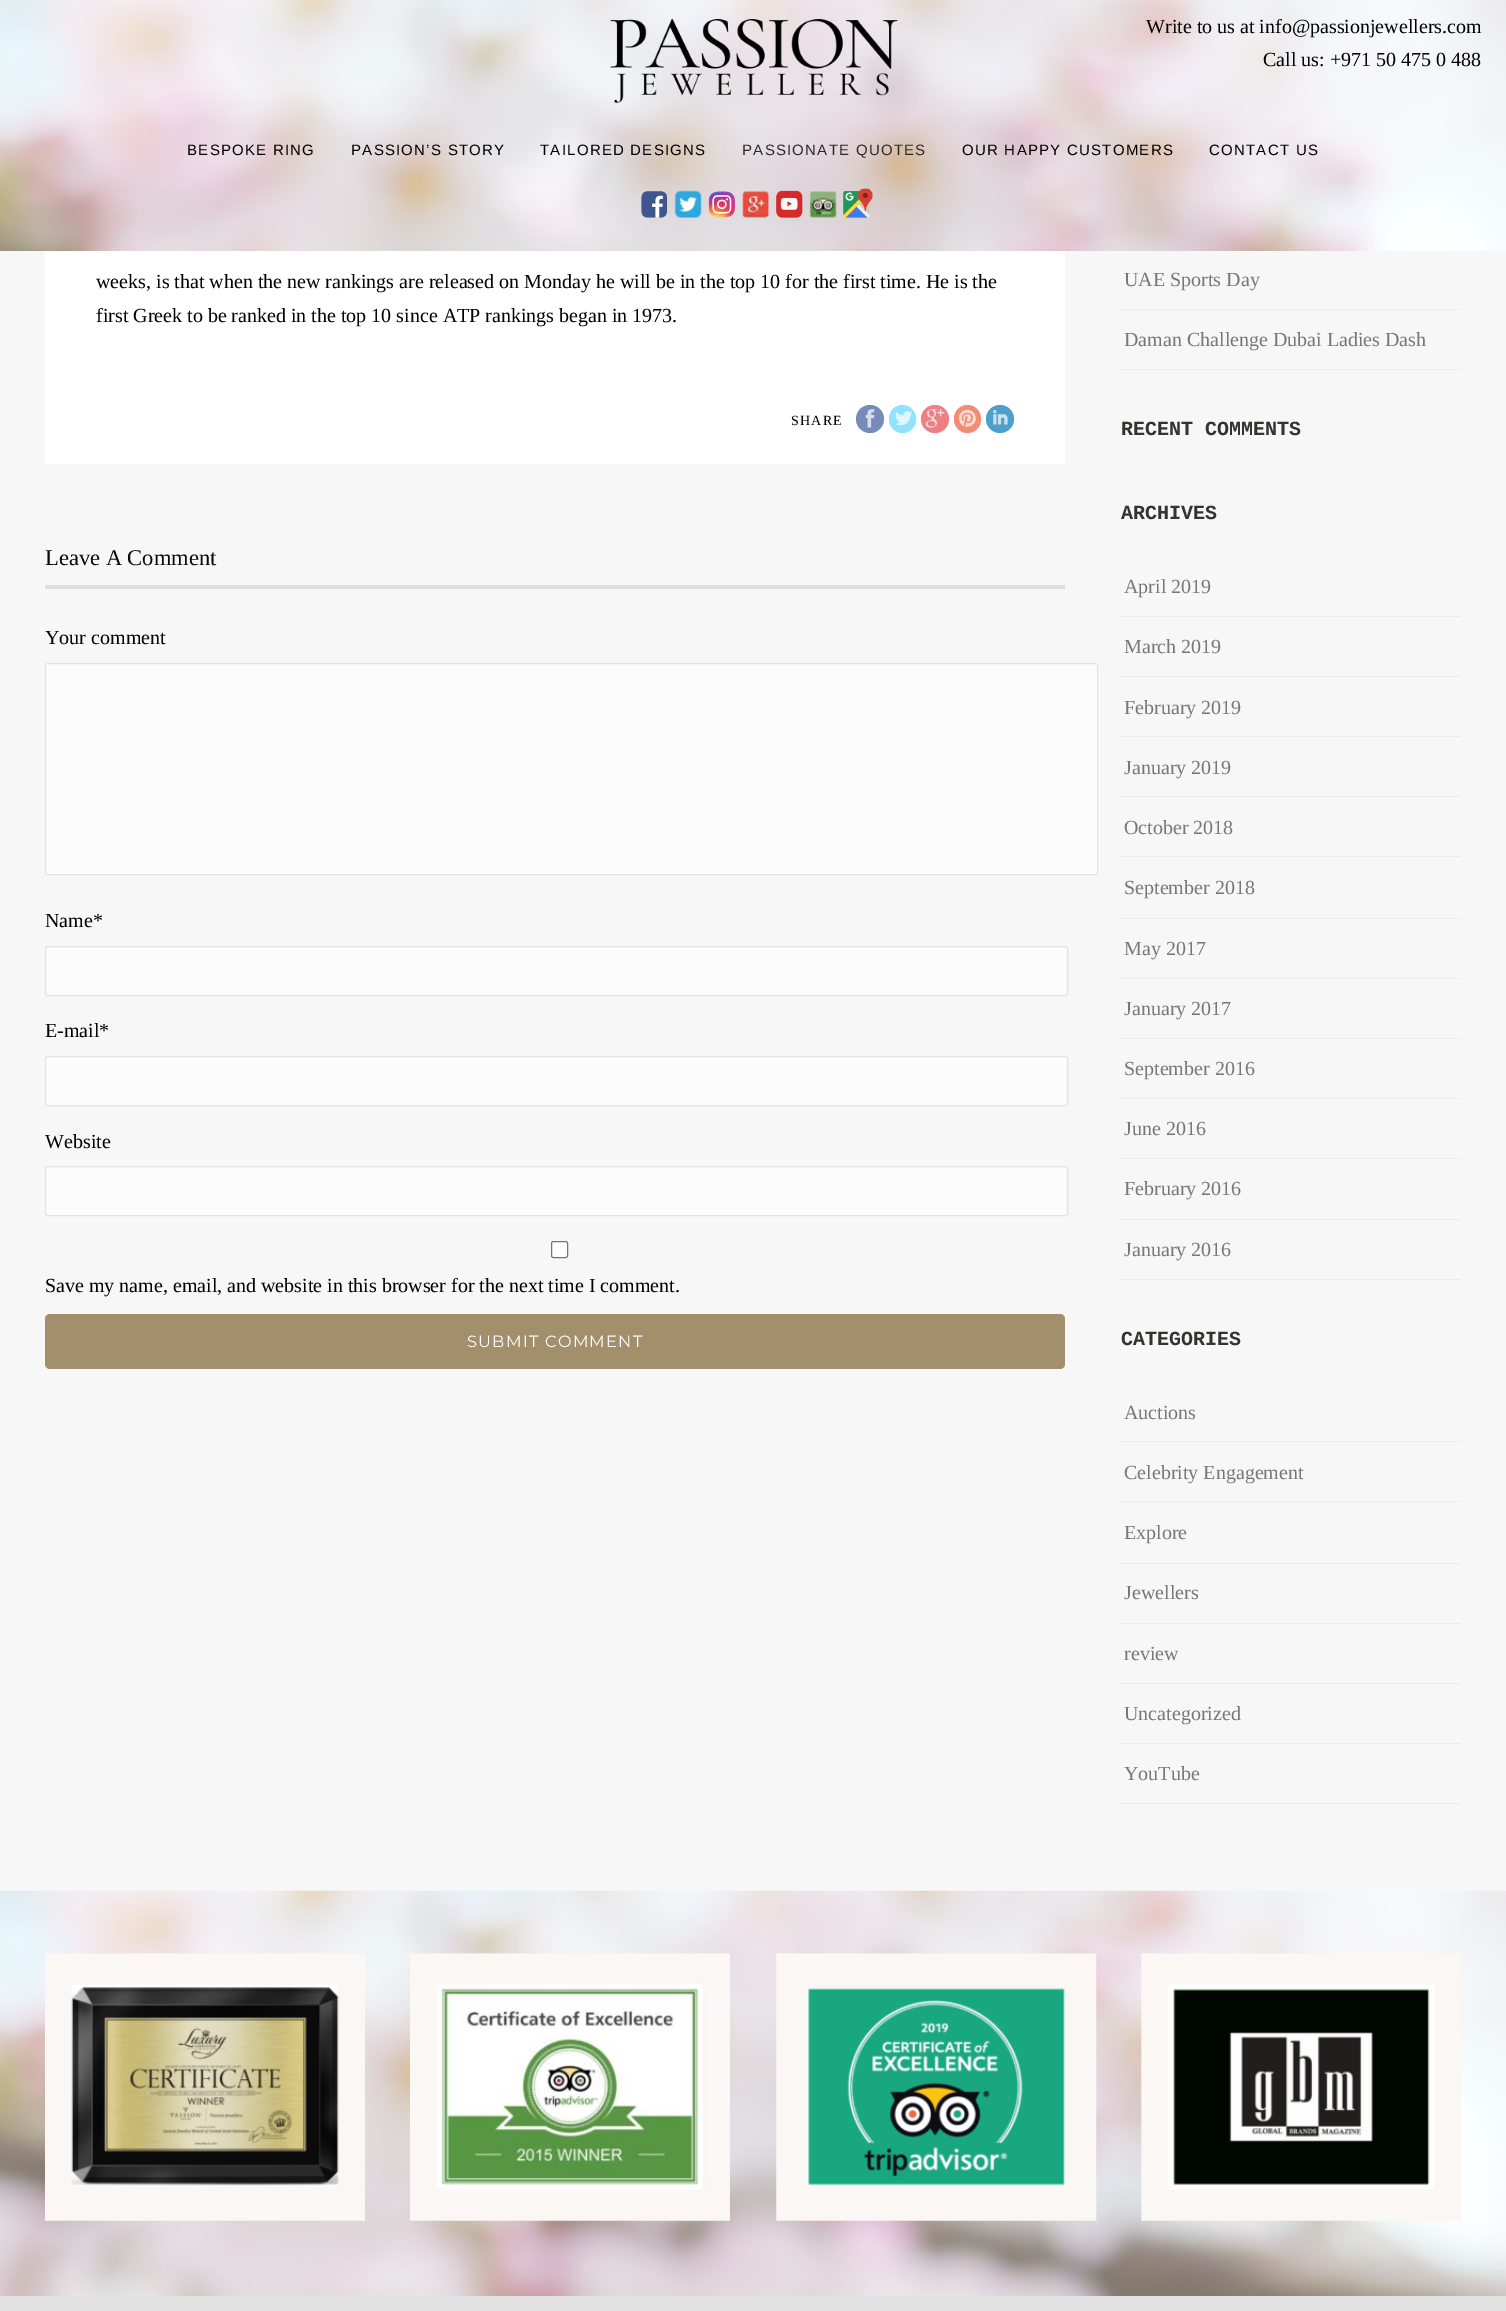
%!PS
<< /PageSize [1506 2311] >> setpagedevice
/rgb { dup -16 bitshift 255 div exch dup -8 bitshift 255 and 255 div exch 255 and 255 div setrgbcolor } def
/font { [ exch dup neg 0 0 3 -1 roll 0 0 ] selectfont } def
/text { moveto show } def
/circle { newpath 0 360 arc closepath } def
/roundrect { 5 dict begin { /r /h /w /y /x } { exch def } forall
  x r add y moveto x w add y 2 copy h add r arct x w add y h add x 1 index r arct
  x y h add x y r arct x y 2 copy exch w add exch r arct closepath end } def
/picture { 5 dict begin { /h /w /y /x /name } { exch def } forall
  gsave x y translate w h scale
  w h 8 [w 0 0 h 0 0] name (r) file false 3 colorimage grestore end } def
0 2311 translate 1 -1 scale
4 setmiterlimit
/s1 { /LiberationSerif-Regular 20 font 16#000000 rgb } def
/s2 { /LiberationSerif-Regular 22.5 font 16#0A0A0A rgb } def
/s3 { /LiberationSerif-Regular 20 font 16#777777 rgb } def
/s4 { /LiberationMono-Bold 20 font 16#333332 rgb } def
16#F7F7F7 rgb
0 0 1506 2311 rectfill
(pic1.raw) 0 0 1506 251 picture
s1
(Write to us at info@passionjewellers.com) 1146 33 text
(Call us: +971 50 475 0 488) 1263 66 text
(pic2.raw) 610 19 288 85 picture
/LiberationSans-Regular 15 font
187 155 moveto 1.25 0 (BESPOKE RING) ashow
351 155 moveto 1.25 0 (PASSION’S STORY) ashow
540 155 moveto 1.25 0 (TAILORED DESIGNS) ashow
16#2D2A2A rgb
742 155 moveto 1.25 0 (PASSIONATE QUOTES) ashow
16#000000 rgb
962 155 moveto 1.25 0 (OUR HAPPY CUSTOMERS) ashow
1209 155 moveto 1.25 0 (CONTACT US) ashow
(pic3.raw) 641 191 27 27 picture
(pic4.raw) 674 190 28 28 picture
(pic5.raw) 708 191 27 27 picture
(pic6.raw) 742 191 28 27 picture
(pic7.raw) 776 190 27 28 picture
(pic8.raw) 809 191 28 27 picture
(pic9.raw) 843 188 30 30 picture
16#FFFFFF rgb
45 251 1020 213 rectfill
s1
(weeks, is that when the new rankings are released on Monday he will be in the top 10 for the first time. He is the) 96 288 text
(first Greek to be ranked in the top 10 since ATP rankings began in 1973.) 96 322 text
/LiberationSerif-Regular 14 font
791 425 moveto 1.25 0 (SHARE) ashow
16#778BB9 rgb
870 419 14 circle fill
(pic10.raw) 865 409 10 19 picture
16#90E3FE rgb
889 405 27 28 13.5 roundrect fill
(pic11.raw) 895 411 17 15 picture
16#ED8084 rgb
935 419 14 circle fill
(pic12.raw) 925 409 20 19 picture
16#EF8E75 rgb
954 405 27 28 13.5 roundrect fill
(pic13.raw) 958 409 18 18 picture
16#4DA0CB rgb
1000 419 14 circle fill
(pic14.raw) 993 410 15 15 picture
16#DEDEDE rgb
45 585 1020 4 rectfill
s2
(Leave A Comment) 45 565 text
s1
(Your comment) 45 644 text
16#FCFCFC rgb
45.5 663.5 1052 211 2 roundrect gsave fill grestore
16#E3E3E3 rgb
stroke
s1
(Name*) 45 927 text
16#FCFCFC rgb
45.5 946.5 1022 49 2 roundrect gsave fill grestore
16#E3E3E3 rgb
stroke
s1
(E-mail*) 45 1037 text
16#FCFCFC rgb
45.5 1056.5 1022 49 2 roundrect gsave fill grestore
16#E3E3E3 rgb
stroke
s1
(Website) 45 1148 text
16#FCFCFC rgb
45.5 1166.5 1022 49 2 roundrect gsave fill grestore
16#E3E3E3 rgb
stroke
16#FFFFFF rgb
551.5 1241.5 16 16 2 roundrect gsave fill grestore
16#767676 rgb
stroke
s1
(Save my name, email, and website in this browser for the next time I comment.) 45 1292 text
16#A38F6B rgb
45 1314 1020 55 5 roundrect fill
/Montserrat-Regular 16.25 font
16#FFFFFF rgb
467 1347 moveto 1.25 0 (SUBMIT COMMENT) ashow
16#EBEBEB rgb
1121 309 340 1 rectfill
s3
(UAE Sports Day) 1124 286 text
16#EBEBEB rgb
1121 369 340 1 rectfill
s3
(Daman Challenge Dubai Ladies Dash) 1124 346 text
s4
(RECENT COMMENTS) 1121 435 text
(ARCHIVES) 1121 519 text
16#EBEBEB rgb
1121 616 340 1 rectfill
s3
(April 2019) 1124 593 text
16#EBEBEB rgb
1121 676 340 1 rectfill
s3
(March 2019) 1124 653 text
16#EBEBEB rgb
1121 736 340 1 rectfill
s3
(February 2019) 1124 714 text
16#EBEBEB rgb
1121 796 340 1 rectfill
s3
(January 2019) 1124 774 text
16#EBEBEB rgb
1121 856 340 1 rectfill
s3
(October 2018) 1124 834 text
16#EBEBEB rgb
1121 918 340 1 rectfill
s3
(September 2018) 1124 894 text
16#EBEBEB rgb
1121 978 340 1 rectfill
s3
(May 2017) 1124 955 text
16#EBEBEB rgb
1121 1038 340 1 rectfill
s3
(January 2017) 1124 1015 text
16#EBEBEB rgb
1121 1098 340 1 rectfill
s3
(September 2016) 1124 1075 text
16#EBEBEB rgb
1121 1158 340 1 rectfill
s3
(June 2016) 1124 1135 text
16#EBEBEB rgb
1121 1219 340 1 rectfill
s3
(February 2016) 1124 1195 text
16#EBEBEB rgb
1121 1279 340 1 rectfill
s3
(January 2016) 1124 1256 text
s4
(CATEGORIES) 1121 1345 text
16#EBEBEB rgb
1121 1441 340 1 rectfill
s3
(Auctions) 1124 1419 text
16#EBEBEB rgb
1121 1501 340 1 rectfill
s3
(Celebrity Engagement) 1124 1479 text
16#EBEBEB rgb
1121 1563 340 1 rectfill
s3
(Explore) 1124 1539 text
16#EBEBEB rgb
1121 1623 340 1 rectfill
s3
(Jewellers) 1124 1599 text
16#EBEBEB rgb
1121 1683 340 1 rectfill
s3
(review) 1124 1660 text
16#EBEBEB rgb
1121 1743 340 1 rectfill
s3
(Uncategorized) 1124 1720 text
16#EBEBEB rgb
1121 1803 340 1 rectfill
s3
(YouTube) 1124 1780 text
(pic15.raw) 0 1890 1506 406 picture
(pic16.raw) 45 1953 320 268 picture
(pic17.raw) 410 1953 320 268 picture
(pic18.raw) 776 1953 321 268 picture
(pic19.raw) 1141 1953 320 268 picture
16#E2E2E2 rgb
0 2296 1506 15 rectfill
showpage
